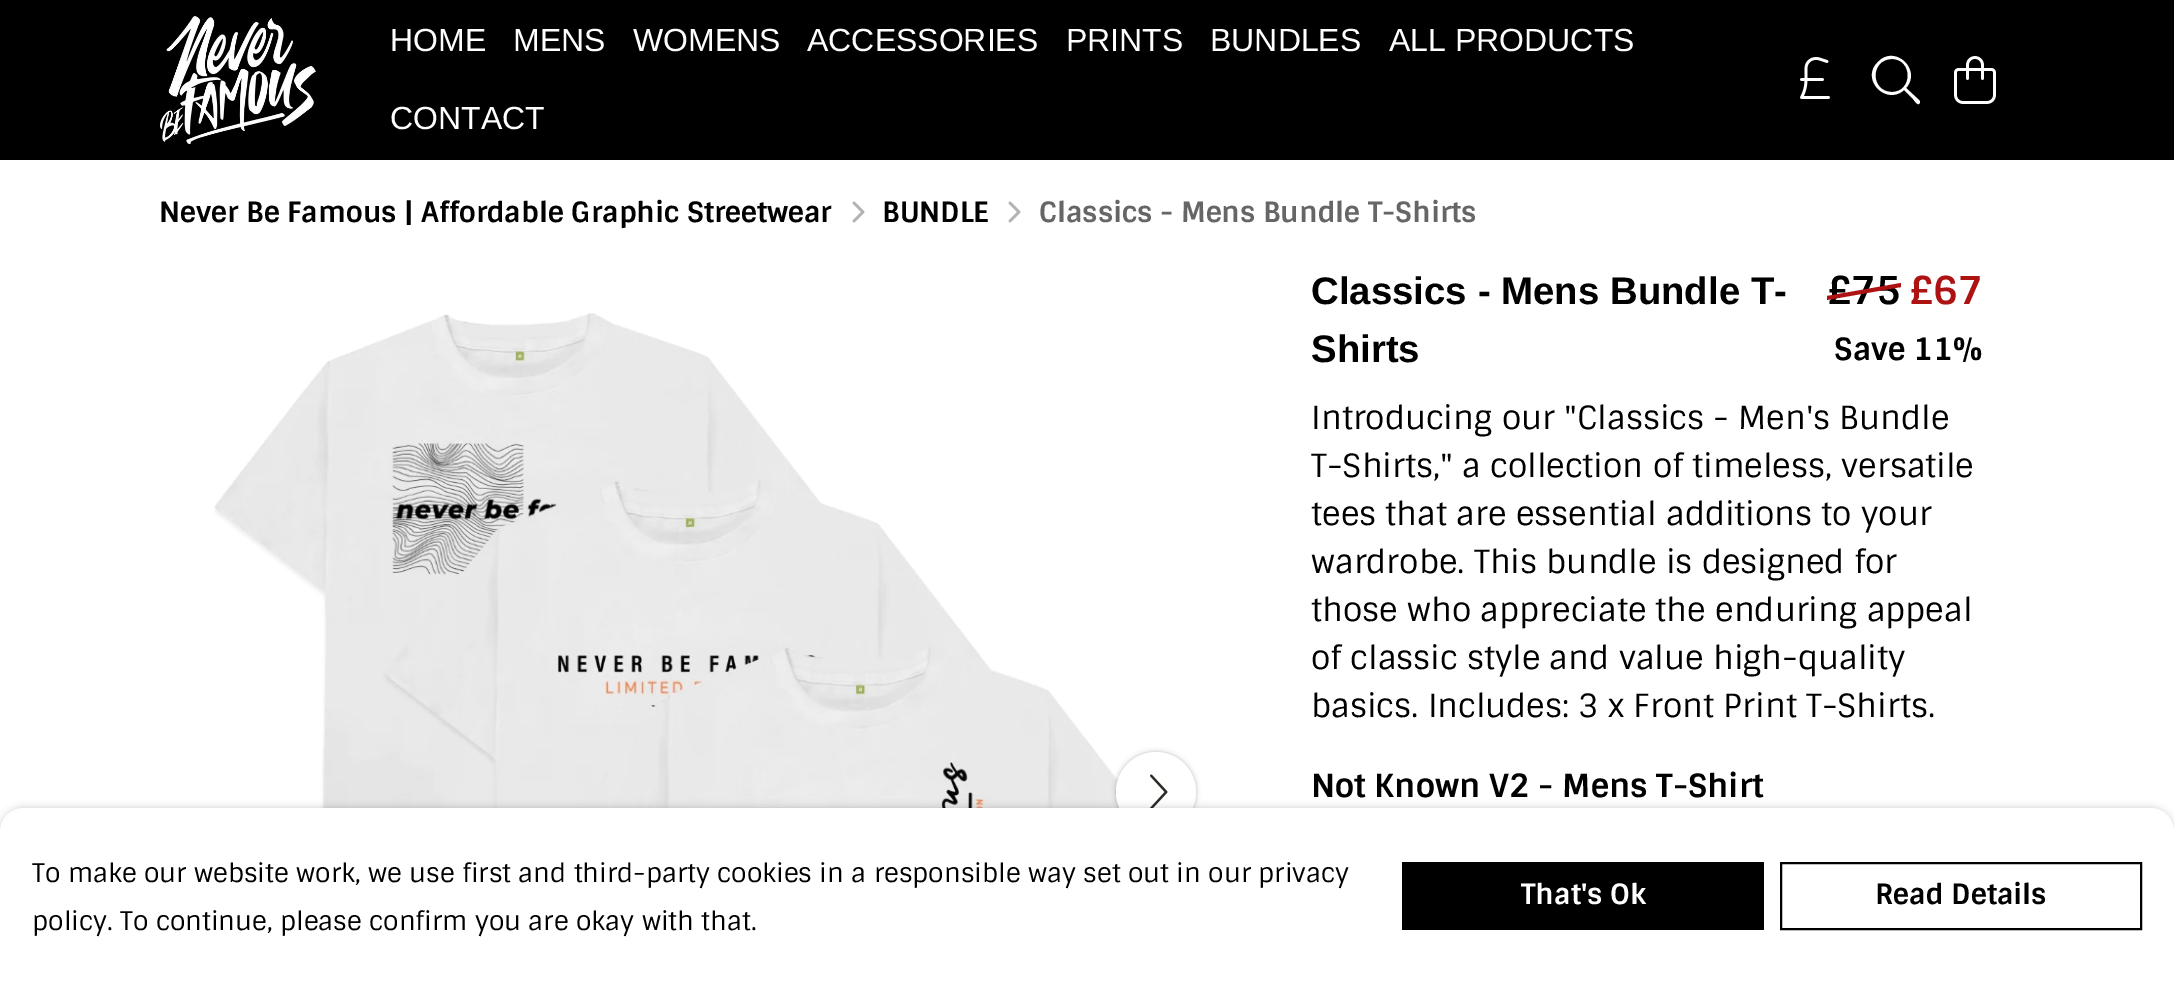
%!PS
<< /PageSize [2174 984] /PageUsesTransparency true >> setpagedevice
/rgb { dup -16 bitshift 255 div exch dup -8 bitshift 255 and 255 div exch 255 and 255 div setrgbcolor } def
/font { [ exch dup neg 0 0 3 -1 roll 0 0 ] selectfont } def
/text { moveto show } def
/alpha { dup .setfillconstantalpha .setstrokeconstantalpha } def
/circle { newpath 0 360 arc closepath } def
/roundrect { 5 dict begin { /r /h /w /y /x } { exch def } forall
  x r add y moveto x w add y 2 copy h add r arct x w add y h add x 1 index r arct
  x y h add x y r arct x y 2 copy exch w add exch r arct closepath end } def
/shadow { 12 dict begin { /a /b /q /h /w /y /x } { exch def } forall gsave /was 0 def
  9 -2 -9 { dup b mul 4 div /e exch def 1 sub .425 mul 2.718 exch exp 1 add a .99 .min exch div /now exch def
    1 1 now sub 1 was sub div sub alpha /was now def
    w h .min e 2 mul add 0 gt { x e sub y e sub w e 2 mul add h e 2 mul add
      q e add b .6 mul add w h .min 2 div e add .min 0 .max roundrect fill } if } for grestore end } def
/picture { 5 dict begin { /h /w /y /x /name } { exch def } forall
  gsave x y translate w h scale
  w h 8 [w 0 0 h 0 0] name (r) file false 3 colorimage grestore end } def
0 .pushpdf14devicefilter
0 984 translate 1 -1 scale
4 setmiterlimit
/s1 { /LiberationSans-Regular 32 font 16#FFFFFF rgb } def
/s2 { /Sintony-Bold 28 font 16#000000 rgb } def
/s3 { /Sintony-Bold 28 font 16#666666 rgb } def
/s4 { /LiberationSans-Bold 38.4 font 16#000000 rgb } def
/s5 { /Sintony-Bold 38.4 font 16#000000 rgb } def
/s6 { /Sintony-Bold 38.4 font 16#AD1313 rgb } def
/s7 { /Sintony-Bold 30.75 font 16#000000 rgb } def
/s8 { /Sintony-Regular 32 font 16#000000 rgb } def
/s9 { /Sintony-Bold 32 font 16#000000 rgb } def
/s10 { /Sintony-Regular 25.6 font 16#000000 rgb } def
/s11 { /Sintony-Bold 28 font 16#FFFFFF rgb } def
16#FFFFFF rgb
0 0 2174 984 rectfill
16#000000 rgb
0 0 2174 160 rectfill
(pic1.raw) 160 16 156 128 picture
s1
(HOME) 390 51 text
(MENS) 513 51 text
(WOMENS) 633 51 text
(ACCESSORIES) 807 51 text
(PRINTS) 1066 51 text
(BUNDLES) 1210 51 text
(ALL PRODUCTS) 1389 51 text
(CONTACT) 390 129 text
(pic2.raw) 1800 57 30 42 picture
1920 101 moveto 1906 88 lineto 1922 70 1895 44 1878 62 curveto 1860 79 1886 106 1904 90 curveto 1913 99 lineto 1914 100 1917 105 1919 104 curveto 1920 103 1920 102 1920 101 curveto closepath 1892 92 moveto 1870 92 1870 59 1892 59 curveto 1913 59 1913 92 1892 92 curveto closepath fill
(pic3.raw) 1954 56 42 48 picture
s2
(Never Be Famous | Affordable Graphic Streetwear) 159 222 text
(pic4.raw) 852 201 13 22 picture
(BUNDLE) 882 222 text
(pic4.raw) 1008 201 13 22 picture
s3
(Classics - Mens Bundle T-Shirts) 1039 222 text
(pic5.raw) 214 313 906 495 picture
16#000000 rgb
1116 752 80 80 40 2.5 0.25 shadow
16#FFFFFF rgb
1156 792 40 circle fill
(pic6.raw) 1150 774 18 34 picture
s4
(Classics - Mens Bundle T-) 1311 304 text
(Shirts) 1311 362 text
s5
(£75) 1827 304 text
16#AD1313 rgb
1827 296 moveto 1901 283 lineto 1901 287 lineto 1827 300 lineto closepath fill
(£67) 1909 304 text
s7
(Save 11%) 1834 360 text
s8
(Introducing our "Classics - Men's Bundle) 1311 429 text
(T-Shirts," a collection of timeless, versatile) 1311 477 text
(tees that are essential additions to your) 1311 525 text
(wardrobe. This bundle is designed for) 1311 573 text
(those who appreciate the enduring appeal) 1311 621 text
(of classic style and value high-quality) 1311 669 text
(basics. Includes: 3 x Front Print T-Shirts.) 1311 717 text
s9
(Not Known V2 - Mens T-Shirt) 1311 797 text
0 808 2174 176 24 4 0.2 shadow
16#FFFFFF rgb
24 808 moveto 2150 808 lineto 2163.5 808 2174 818.5 2174 832 curveto 2174 984 lineto 0 984 lineto 0 832 lineto 0 818.5 10.5 808 24 808 curveto closepath fill
s10
(To make our website work, we use first and third-party cookies in a responsible way set out in our privacy) 32 882 text
(policy. To continue, please confirm you are okay with that.) 32 930 text
1402 862 362 68 rectfill
s11
(That's Ok) 1521 904 text
16#000000 rgb
2 setlinewidth
1781 863 360 66 rectstroke
(Read Details) 1875 904 text
.poppdf14devicefilter showpage
